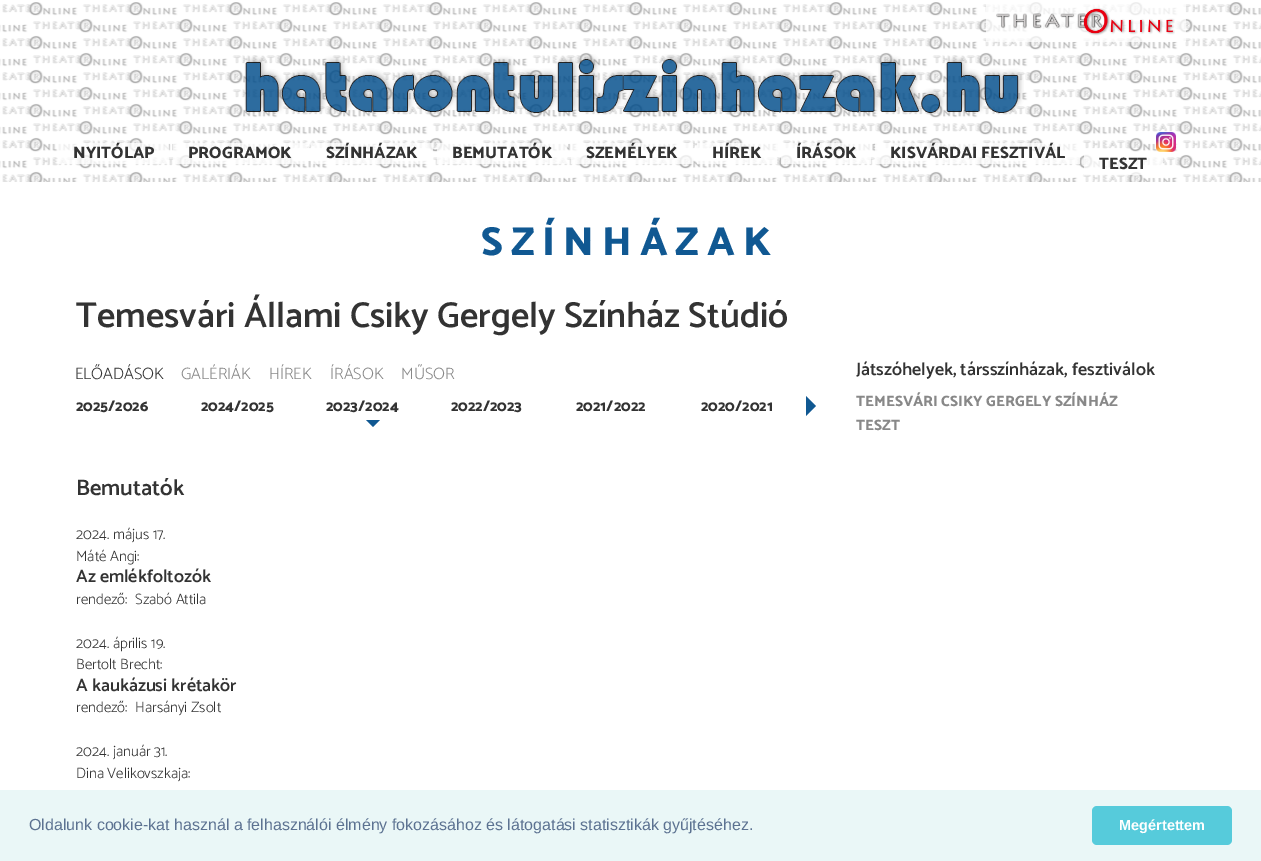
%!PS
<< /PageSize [1261 861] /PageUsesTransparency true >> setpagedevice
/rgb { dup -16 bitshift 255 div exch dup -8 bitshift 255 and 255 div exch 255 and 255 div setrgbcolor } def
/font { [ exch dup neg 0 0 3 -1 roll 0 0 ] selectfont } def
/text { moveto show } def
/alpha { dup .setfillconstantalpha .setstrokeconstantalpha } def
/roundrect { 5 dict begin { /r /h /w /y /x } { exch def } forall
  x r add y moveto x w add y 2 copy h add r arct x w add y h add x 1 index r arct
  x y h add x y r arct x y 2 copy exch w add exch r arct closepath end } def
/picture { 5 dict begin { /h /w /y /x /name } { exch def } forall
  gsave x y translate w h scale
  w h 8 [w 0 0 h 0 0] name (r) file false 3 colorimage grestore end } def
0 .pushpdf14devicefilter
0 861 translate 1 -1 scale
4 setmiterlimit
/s1 { /Catamaran-ExtraBold 16.5 font 16#333333 rgb } def
/s2 { /Catamaran-SemiBold 36 font 16#333333 rgb } def
/s3 { /Catamaran-Light 16.5 font 16#333333 rgb } def
/s4 { /Catamaran-Light 16.5 font 16#888888 rgb } def
/s5 { /Catamaran-ExtraBold 15 font 16#333333 rgb } def
/s6 { /Catamaran-SemiBold 22.5 font 16#333333 rgb } def
/s7 { /Catamaran-Light 15 font 16#333333 rgb } def
/s8 { /Catamaran-SemiBold 18 font 16#333333 rgb } def
/s9 { /Catamaran-ExtraBold 15 font 16#888888 rgb } def
/s10 { /LiberationSans-Regular 16 font 16#5C7291 rgb } def
/s11 { /LiberationSans-Bold 14.5 font 16#FFFFFF rgb } def
16#FFFFFF rgb
0 0 1261 861 rectfill
(pic1.raw) 0 2 1261 180 picture
0.75 alpha
986 2 200 40 rectfill
1 alpha
(pic2.raw) 996 8 179 28 picture
(pic3.raw) 244 54 780 61 picture
0.75 alpha
58 143 111 21 rectfill
1 alpha
s1
(NYITÓLAP) 73 158 text
0.75 alpha
16#FFFFFF rgb
173 143 134 21 rectfill
1 alpha
s1
(PROGRAMOK) 188 158 text
0.75 alpha
16#FFFFFF rgb
311 143 122 21 rectfill
1 alpha
s1
(SZÍNHÁZAK) 326 158 text
0.75 alpha
16#FFFFFF rgb
437 143 130 21 rectfill
1 alpha
s1
(BEMUTATÓK) 452 158 text
0.75 alpha
16#FFFFFF rgb
571 143 122 21 rectfill
1 alpha
s1
(SZEMÉLYEK) 586 158 text
0.75 alpha
16#FFFFFF rgb
697 143 80 21 rectfill
1 alpha
s1
(HÍREK) 712 158 text
0.75 alpha
16#FFFFFF rgb
781 143 90 21 rectfill
1 alpha
s1
(ÍRÁSOK) 796 158 text
0.75 alpha
16#FFFFFF rgb
875 143 205 21 rectfill
1 alpha
s1
(KISVÁRDAI FESZTIVÁL) 890 158 text
0.75 alpha
16#FFFFFF rgb
1084 155 79 20 rectfill
1 alpha
s1
(TESZT) 1099 169 text
(pic4.raw) 1156 132 20 20 picture
/Catamaran-ExtraBold 40.5 font
16#105892 rgb
481 255 moveto 8 0 (SZÍNHÁZAK) ashow
s2
(Temesvári Állami Csiky Gergely Színház Stúdió) 76 327 text
s3
(ELŐADÁSOK) 75 379 text
s4
(GALÉRIÁK) 181 379 text
(HÍREK) 269 379 text
(ÍRÁSOK) 330 379 text
(MŰSOR) 401 379 text
s5
(2025/2026) 76 411 text
(2024/2025) 201 411 text
(2023/2024) 326 411 text
16#105892 rgb
366 420 moveto 380 420 lineto 373 427 lineto closepath fill
s5
(2022/2023) 451 411 text
(2021/2022) 576 411 text
(2020/2021) 701 411 text
16#105892 rgb
806 416 moveto 806 396 lineto 816 406 lineto closepath fill
s6
(Bemutatók) 76 495 text
s7
(2024. május 17.) 76 539 text
(Máté Angi:) 76 561 text
s8
(Az emlékfoltozók) 76 582 text
s7
(rendező:) 76 604 text
(Szabó Attila) 135 604 text
(2024. április 19.) 76 648 text
(Bertolt Brecht:) 76 669 text
s8
(A kaukázusi krétakör) 76 691 text
s7
(rendező:) 76 712 text
(Harsányi Zsolt) 135 712 text
(2024. január 31.) 76 756 text
(Dina Velikovszkaja:) 76 778 text
s8
(Játszóhelyek, társszínházak, fesztiválok) 856 375 text
s9
(TEMESVÁRI CSIKY GERGELY SZÍNHÁZ) 856 406 text
(TESZT) 856 430 text
16#EAF7F7 rgb
0 790 1261 71 rectfill
s10
(Oldalunk cookie-kat használ a felhasználói élmény fokozásához és látogatási statisztikák gyűjtéséhez.) 29 830 text
16#56CBDB rgb
1092 806 140 39 5 roundrect fill
s11
(Megértettem) 1119 830 text
.poppdf14devicefilter showpage
